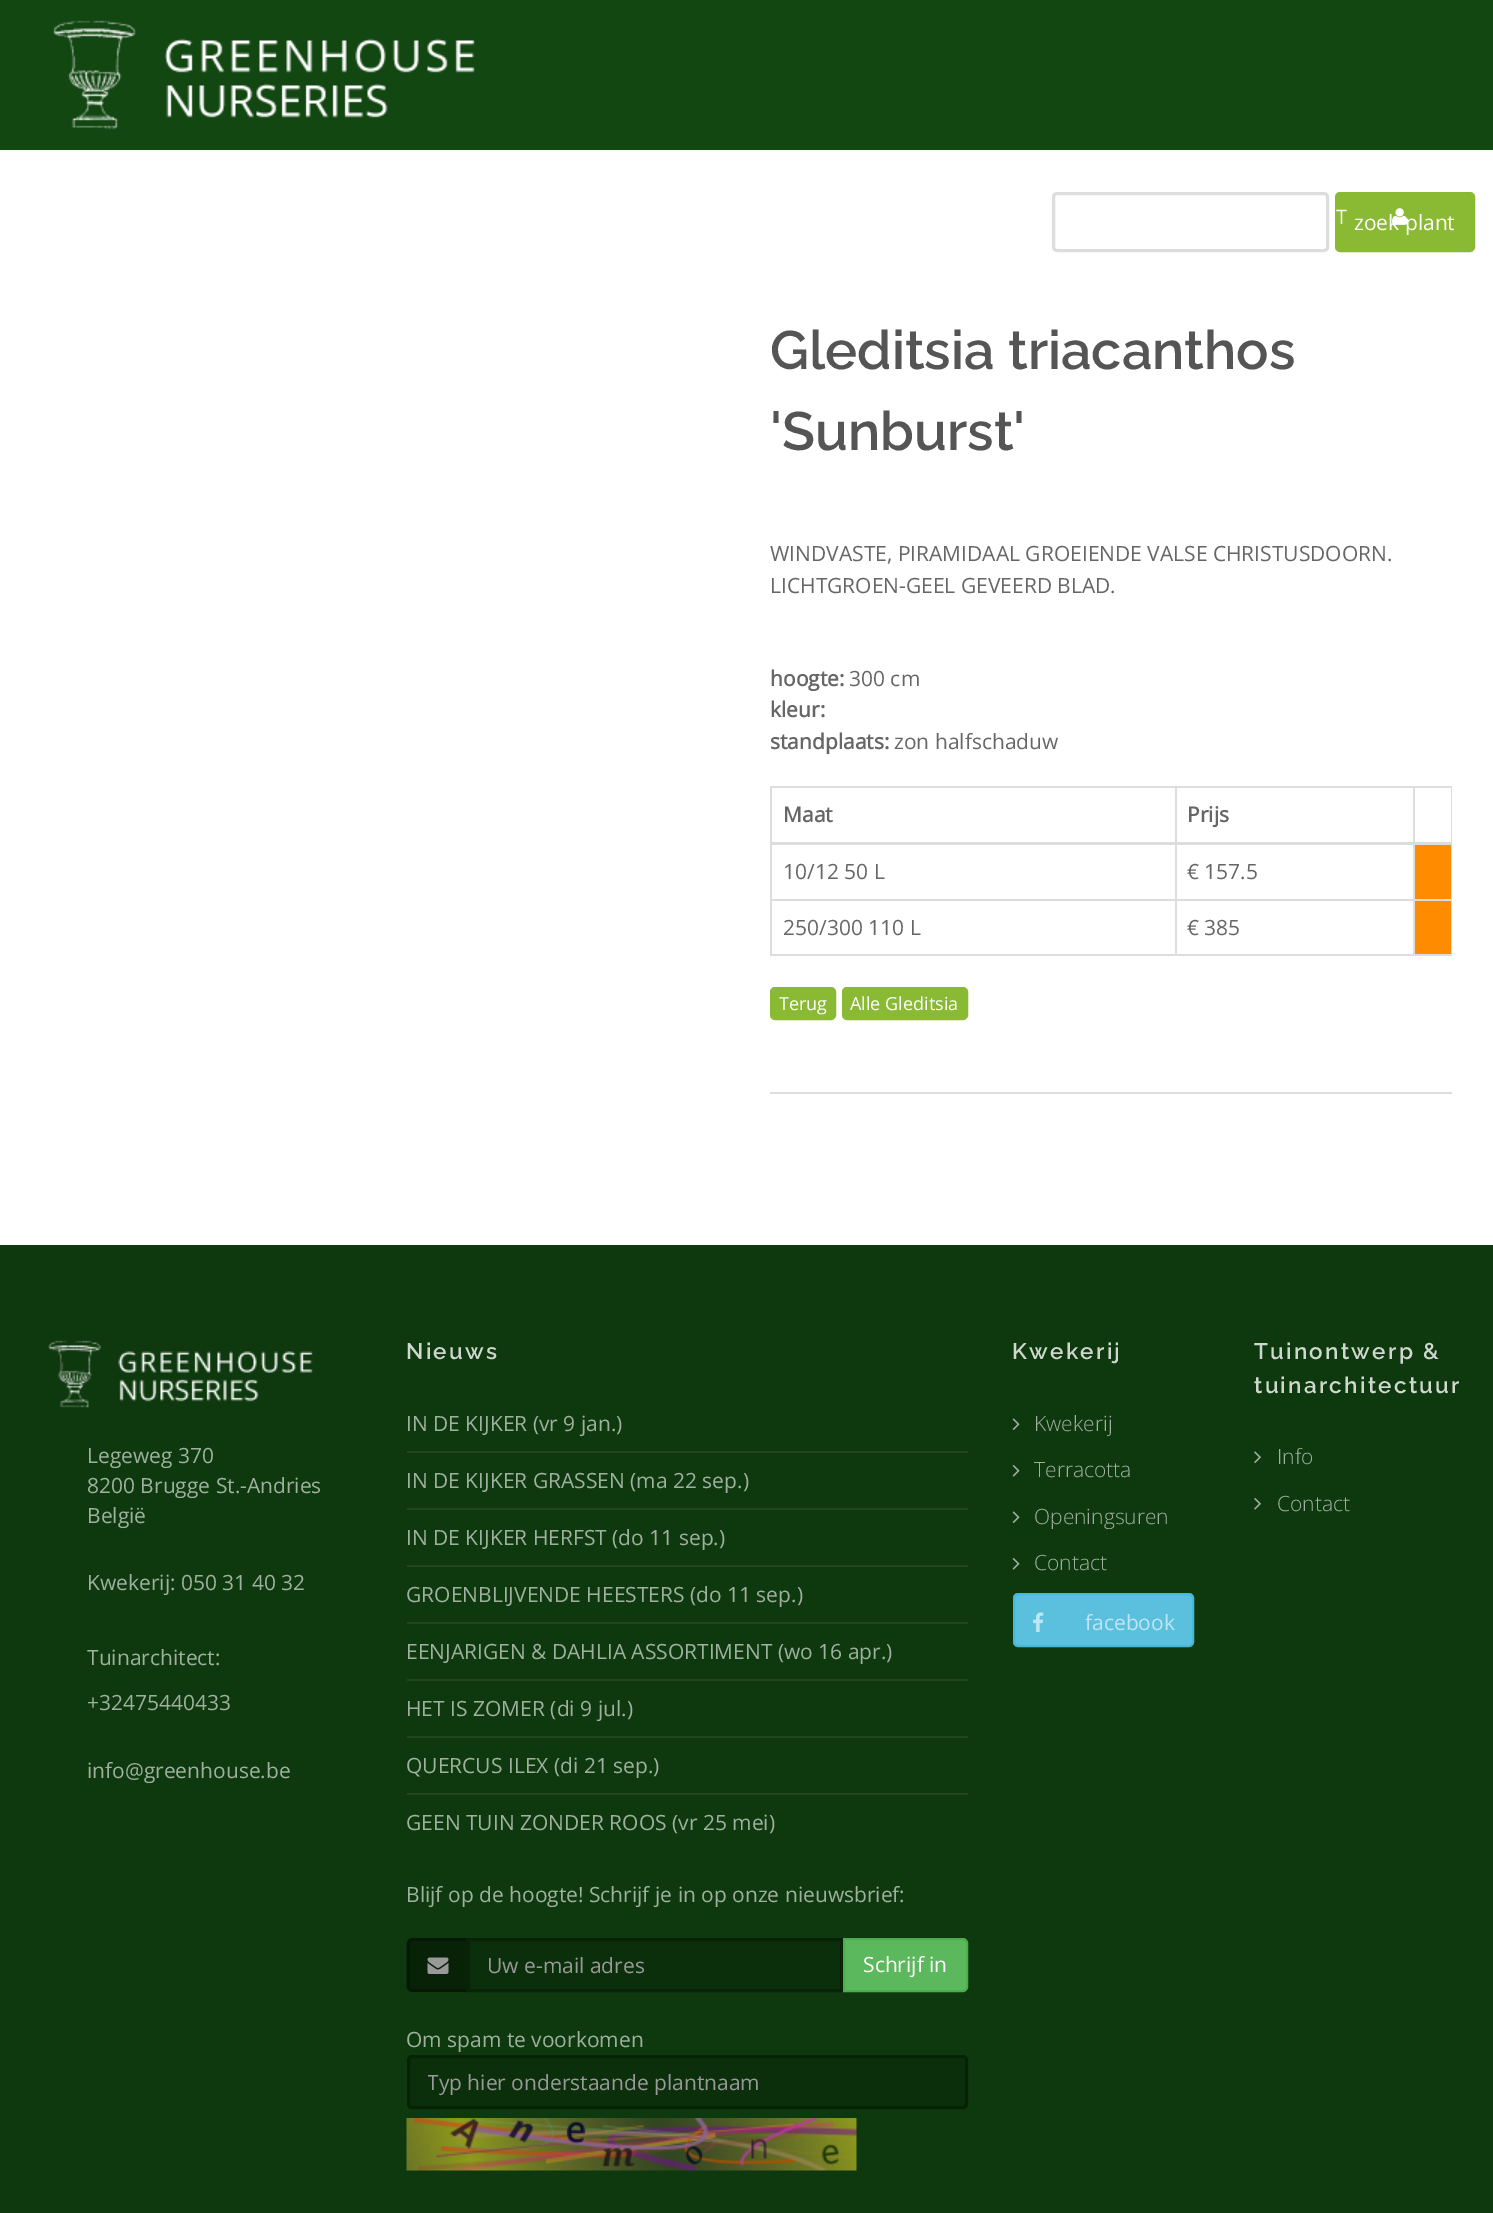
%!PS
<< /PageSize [1493 2213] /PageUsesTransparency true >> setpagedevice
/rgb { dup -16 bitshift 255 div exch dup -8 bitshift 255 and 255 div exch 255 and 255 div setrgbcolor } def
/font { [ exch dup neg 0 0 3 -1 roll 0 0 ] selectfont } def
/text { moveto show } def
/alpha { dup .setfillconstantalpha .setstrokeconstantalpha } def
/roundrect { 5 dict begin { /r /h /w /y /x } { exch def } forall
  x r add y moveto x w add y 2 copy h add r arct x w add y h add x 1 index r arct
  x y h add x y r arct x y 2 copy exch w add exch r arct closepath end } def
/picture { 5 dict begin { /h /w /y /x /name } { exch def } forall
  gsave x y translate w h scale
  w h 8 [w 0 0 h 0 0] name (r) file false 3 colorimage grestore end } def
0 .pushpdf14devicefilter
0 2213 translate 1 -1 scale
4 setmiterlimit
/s1 { /OpenSans-Regular 20 font 16#FFFFFF rgb } def
/s2 { /OpenSans-Regular 21 font 16#FFFFFF rgb } def
/s3 { /Raleway-SemiBold 54 font 16#555555 rgb } def
/s4 { /OpenSans-Regular 21 font 16#666666 rgb } def
/s5 { /OpenSans-Bold 21 font 16#666666 rgb } def
/s6 { /OpenSans-Regular 18 font 16#FFFFFF rgb } def
/s7 { /OpenSans-Regular 21 font 16#9FB09F rgb } def
/s8 { /OpenSans-Regular 21 font 16#999999 rgb } def
/s9 { /OpenSans-Light 21 font 16#9FB09F rgb } def
/s10 { /OpenSans-Regular 21 font 16#BDE6F2 rgb } def
16#FFFFFF rgb
0 0 1493 2213 rectfill
16#124712 rgb
0 0 1493 150 rectfill
(pic1.raw) 53 20 422 110 picture
16#8AB933 rgb
1336 193 138 58 4 roundrect gsave fill grestore
2 setlinewidth
stroke
s1
(T) 1336 224 text
s2
(zoek plant) 1354 230 text
(pic2.raw) 1392 208 15 17 picture
16#DDDDDD rgb
3 setlinewidth
1053.5 193.5 274 57 3.5 roundrect stroke
s3
(Gleditsia triacanthos) 770 369 text
('Sunburst') 770 450 text
s4
(WINDVASTE, PIRAMIDAAL GROEIENDE VALSE CHRISTUSDOORN.) 770 561 text
(LICHTGROEN-GEEL GEVEERD BLAD.) 770 593 text
s5
(hoogte:) 770 686 text
s4
(300 cm) 849 686 text
s5
(kleur:) 770 717 text
(standplaats:) 770 749 text
s4
(zon halfschaduw) 894 749 text
16#DDDDDD rgb
770 786 682 2 rectfill
1451 786 1 170 rectfill
770 954 682 2 rectfill
770 786 2 170 rectfill
s5
(Maat) 783 822 text
(Prijs) 1187 822 text
16#DDDDDD rgb
1413 899 39 2 rectfill
1413 899 2 57 rectfill
1175 899 240 2 rectfill
1175 899 2 57 rectfill
770 899 406 2 rectfill
1175 786 2 114 rectfill
1413 786 2 114 rectfill
770 842 682 3 rectfill
s4
(10/12 50 L) 783 879 text
(€ 157.5) 1187 879 text
16#FF8C00 rgb
1415 845 36 54 rectfill
s4
(250/300 110 L) 783 935 text
(€ 385) 1187 935 text
16#FF8C00 rgb
1415 901 36 53 rectfill
16#8AB933 rgb
771 988 64 31 4 roundrect gsave fill grestore
2 setlinewidth
stroke
s6
(Terug) 779 1010 text
16#8AB933 rgb
843 988 124 31 4 roundrect gsave fill grestore
stroke
s6
(Alle Gleditsia) 850 1010 text
16#DDDDDD rgb
770 1092 682 2 rectfill
16#0E390E rgb
0 1245 1493 968 rectfill
/Raleway-SemiBold 22.5 font
16#CFD7CF rgb
406 1359 moveto 2.25 0 (Nieuws) ashow
16#1F471F rgb
407 1451 561 2 rectfill
s7
(IN DE KIJKER \(vr 9 jan.\)) 406 1431 text
16#1F471F rgb
407 1508 561 2 rectfill
s7
(IN DE KIJKER GRASSEN \(ma 22 sep.\)) 406 1488 text
16#1F471F rgb
407 1565 561 2 rectfill
s7
(IN DE KIJKER HERFST \(do 11 sep.\)) 406 1545 text
16#1F471F rgb
407 1622 561 2 rectfill
s7
(GROENBLIJVENDE HEESTERS \(do 11 sep.\)) 406 1602 text
16#1F471F rgb
407 1679 561 2 rectfill
s7
(EENJARIGEN & DAHLIA ASSORTIMENT \(wo 16 apr.\)) 406 1659 text
16#1F471F rgb
407 1736 561 2 rectfill
s7
(HET IS ZOMER \(di 9 jul.\)) 406 1716 text
16#1F471F rgb
407 1793 561 2 rectfill
s7
(QUERCUS ILEX \(di 21 sep.\)) 406 1773 text
(GEEN TUIN ZONDER ROOS \(vr 25 mei\)) 406 1830 text
(Blijf op de hoogte! Schrijf je in op onze nieuwsbrief:) 406 1902 text
16#082208 rgb
413 1938 moveto 467 1938 lineto 467 1992 lineto 413 1992 lineto 409.5 1992 407 1989.5 407 1986 curveto 407 1944 lineto 407 1940.5 409.5 1938 413 1938 curveto closepath fill
0.25 alpha
16#000000 rgb
412 1938 moveto 466 1938 lineto 466 1992 lineto 412 1992 lineto 409 1992 406 1989 406 1986 curveto 406 1944 lineto 406 1941 409 1938 412 1938 curveto closepath 412 1941 moveto 466 1941 lineto 466 1989 lineto 412 1989 lineto 411 1989 410 1988 410 1986 curveto 410 1944 lineto 410 1942 411 1941 412 1941 curveto closepath eofill
1 alpha
(pic3.raw) 427 1957 22 17 picture
16#0B2E0B rgb
468.5 1939.5 moveto 841.5 1939.5 lineto 841.5 1990.5 lineto 468.5 1990.5 lineto closepath gsave fill grestore
16#082308 rgb
3 setlinewidth
stroke
s8
(Uw e-mail adres) 487 1973 text
16#5CB85C rgb
844 1939 moveto 963 1939 lineto 965 1939 967 1941 967 1943 curveto 967 1987 lineto 967 1989 965 1991 963 1991 curveto 844 1991 lineto closepath gsave fill grestore
16#4CAE4C rgb
2 setlinewidth
stroke
s2
(Schrijf in) 863 1972 text
s7
(Om spam te voorkomen) 406 2047 text
16#0B2E0B rgb
407 2055 561 54 5 roundrect fill
0.25 alpha
16#000000 rgb
3 setlinewidth
408.5 2056.5 558 51 3.5 roundrect stroke
gsave
428 2067 519 29 rectclip
1 alpha
s8
(Typ hier onderstaande plantnaam) 427 2090 text
grestore
1 alpha
(pic4.raw) 406 2118 451 53 picture
/Raleway-SemiBold 22.5 font
16#CFD7CF rgb
1012 1359 moveto 2.25 0 (Kwekerij) ashow
(pic5.raw) 1012 1418 8 12 picture
s9
(Kwekerij) 1034 1431 text
(pic6.raw) 1012 1465 8 12 picture
(Terracotta) 1034 1477 text
(pic5.raw) 1012 1511 8 12 picture
(Openingsuren) 1034 1524 text
(pic6.raw) 1012 1558 8 12 picture
(Contact) 1034 1570 text
16#5BC0DE rgb
1014 1594 179 52 4 roundrect gsave fill grestore
16#46B8DA rgb
2 setlinewidth
stroke
(pic7.raw) 1033 1612 11 20 picture
s10
(facebook) 1085 1630 text
/Raleway-SemiBold 22.5 font
16#CFD7CF rgb
1254 1359 moveto 2.25 0 (Tuinontwerp &) ashow
1254 1393 moveto 2.25 0 (tuinarchitectuur) ashow
(pic8.raw) 1254 1451 7 12 picture
s9
(Info) 1277 1464 text
(pic9.raw) 1254 1498 7 12 picture
(Contact) 1277 1511 text
(pic10.raw) 48 1340 265 68 picture
s7
(Legeweg 370) 87 1463 text
(8200 Brugge St.-Andries) 87 1493 text
(België) 87 1523 text
(Kwekerij: 050 31 40 32) 87 1590 text
(Tuinarchitect:) 87 1665 text
(+32475440433) 87 1710 text
(info@greenhouse.be) 87 1778 text
.poppdf14devicefilter showpage
